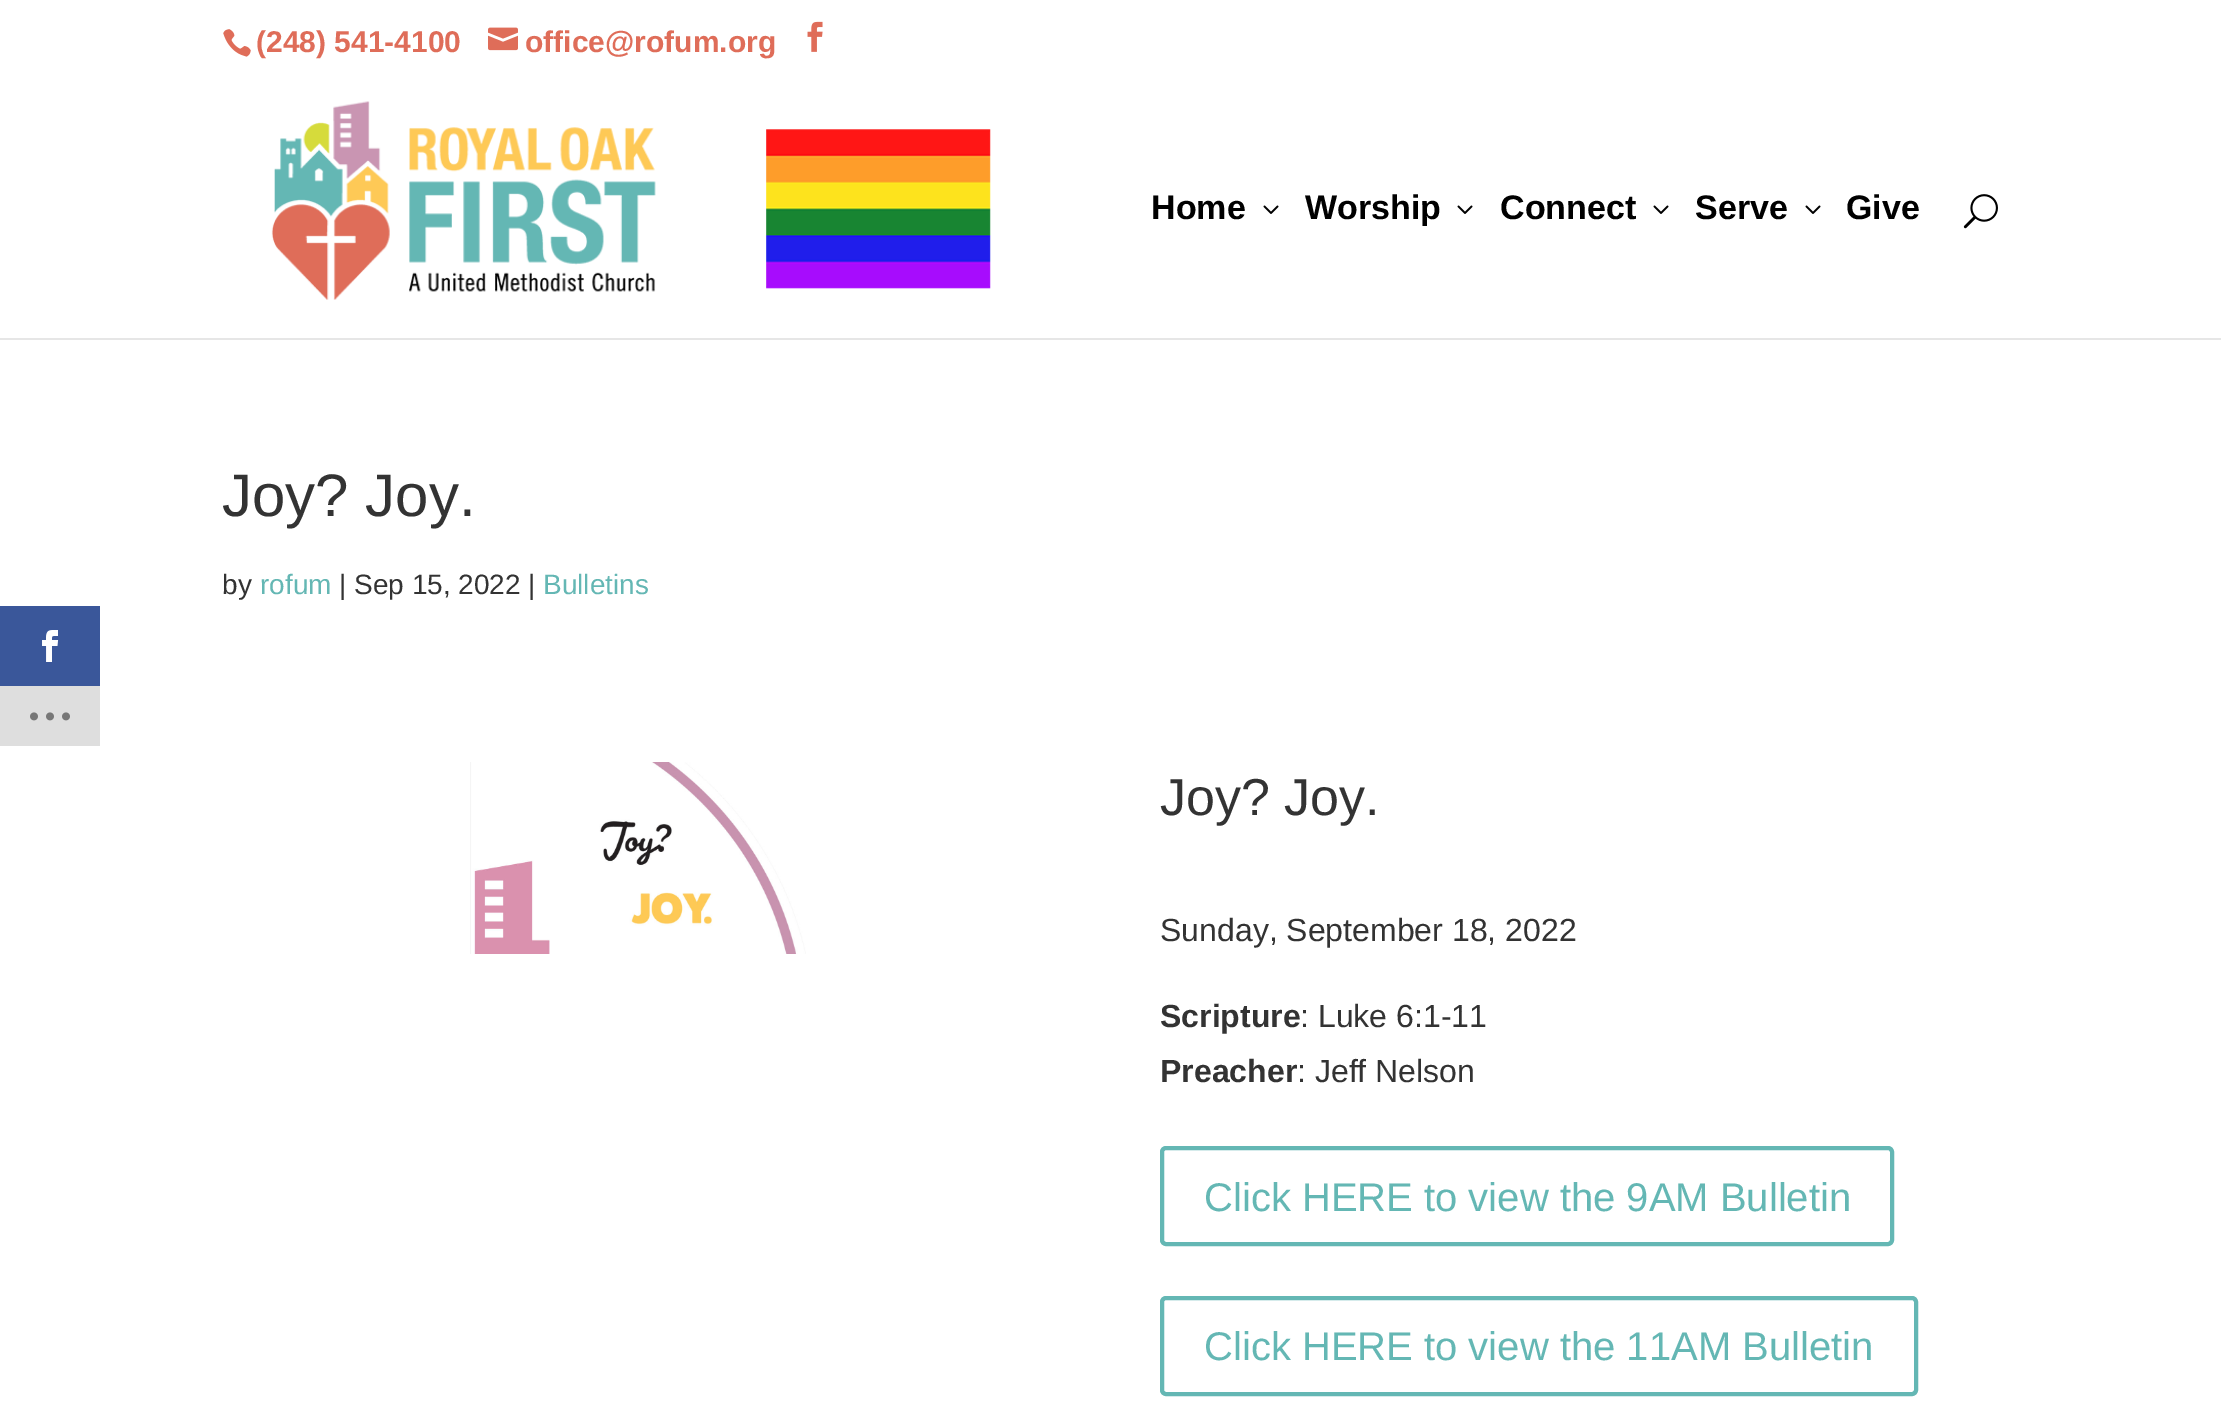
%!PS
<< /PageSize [2221 1414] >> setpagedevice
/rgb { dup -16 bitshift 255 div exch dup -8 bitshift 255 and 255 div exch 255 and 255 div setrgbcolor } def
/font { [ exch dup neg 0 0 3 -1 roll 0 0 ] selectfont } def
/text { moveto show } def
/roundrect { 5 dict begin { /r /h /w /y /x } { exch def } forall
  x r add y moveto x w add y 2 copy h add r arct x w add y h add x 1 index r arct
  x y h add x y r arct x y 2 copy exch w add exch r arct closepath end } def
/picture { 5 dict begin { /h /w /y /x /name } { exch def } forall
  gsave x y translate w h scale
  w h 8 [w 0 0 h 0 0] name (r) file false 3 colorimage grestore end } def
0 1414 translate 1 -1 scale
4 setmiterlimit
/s1 { /LiberationSans-Bold 30 font 16#DF6D59 rgb } def
/s2 { /LiberationSans-Bold 34 font 16#000000 rgb } def
/s3 { /LiberationSans-Regular 60 font 16#333333 rgb } def
/s4 { /LiberationSans-Regular 28 font 16#333333 rgb } def
/s5 { /LiberationSans-Regular 28 font 16#64B7B4 rgb } def
/s6 { /LiberationSans-Regular 52 font 16#333333 rgb } def
/s7 { /LiberationSans-Regular 32 font 16#333333 rgb } def
/s8 { /LiberationSans-Bold 32 font 16#333333 rgb } def
/s9 { /LiberationSans-Regular 40 font 16#64B7B4 rgb } def
16#FFFFFF rgb
0 0 2221 1414 rectfill
16#3A579A rgb
0 606 100 80 rectfill
(pic1.raw) 42 630 17 32 picture
16#DEDEDE rgb
0 686 100 60 rectfill
(pic2.raw) 30 712 40 9 picture
(pic3.raw) 223 29 28 28 picture
s1
(\(248\) 541-4100) 256 52 text
(pic4.raw) 488 27 30 24 picture
(office@rofum.org) 525 52 text
(pic5.raw) 807 21 16 31 picture
16#E6E6E6 rgb
0 338 2221 2 rectfill
(pic6.raw) 271 101 720 199 picture
s2
(Home) 1151 219 text
(pic7.raw) 1263 205 16 9 picture
(Worship) 1305 219 text
(pic7.raw) 1457 205 16 9 picture
(Connect) 1500 219 text
(pic7.raw) 1653 205 16 9 picture
(Serve) 1695 219 text
(pic7.raw) 1805 205 16 9 picture
(Give) 1846 219 text
(pic8.raw) 1963 194 35 35 picture
s3
(Joy? Joy.) 222 516 text
s4
(by) 222 594 text
s5
(rofum) 260 594 text
s4
(| Sep 15, 2022 |) 339 594 text
s5
(Bulletins) 543 594 text
(pic9.raw) 470 762 336 192 picture
s6
(Joy? Joy.) 1160 815 text
s7
(Sunday, September 18, 2022) 1160 941 text
s8
(Scripture) 1160 1027 text
s7
(: Luke 6:1-11) 1300 1027 text
s8
(Preacher) 1160 1082 text
s7
(: Jeff Nelson) 1297 1082 text
16#64B7B4 rgb
4 setlinewidth
1162 1148 730 96 4 roundrect stroke
s9
(Click HERE to view the 9AM Bulletin) 1204 1211 text
1162 1298 754 96 4 roundrect stroke
(Click HERE to view the 11AM Bulletin) 1204 1360 text
showpage
